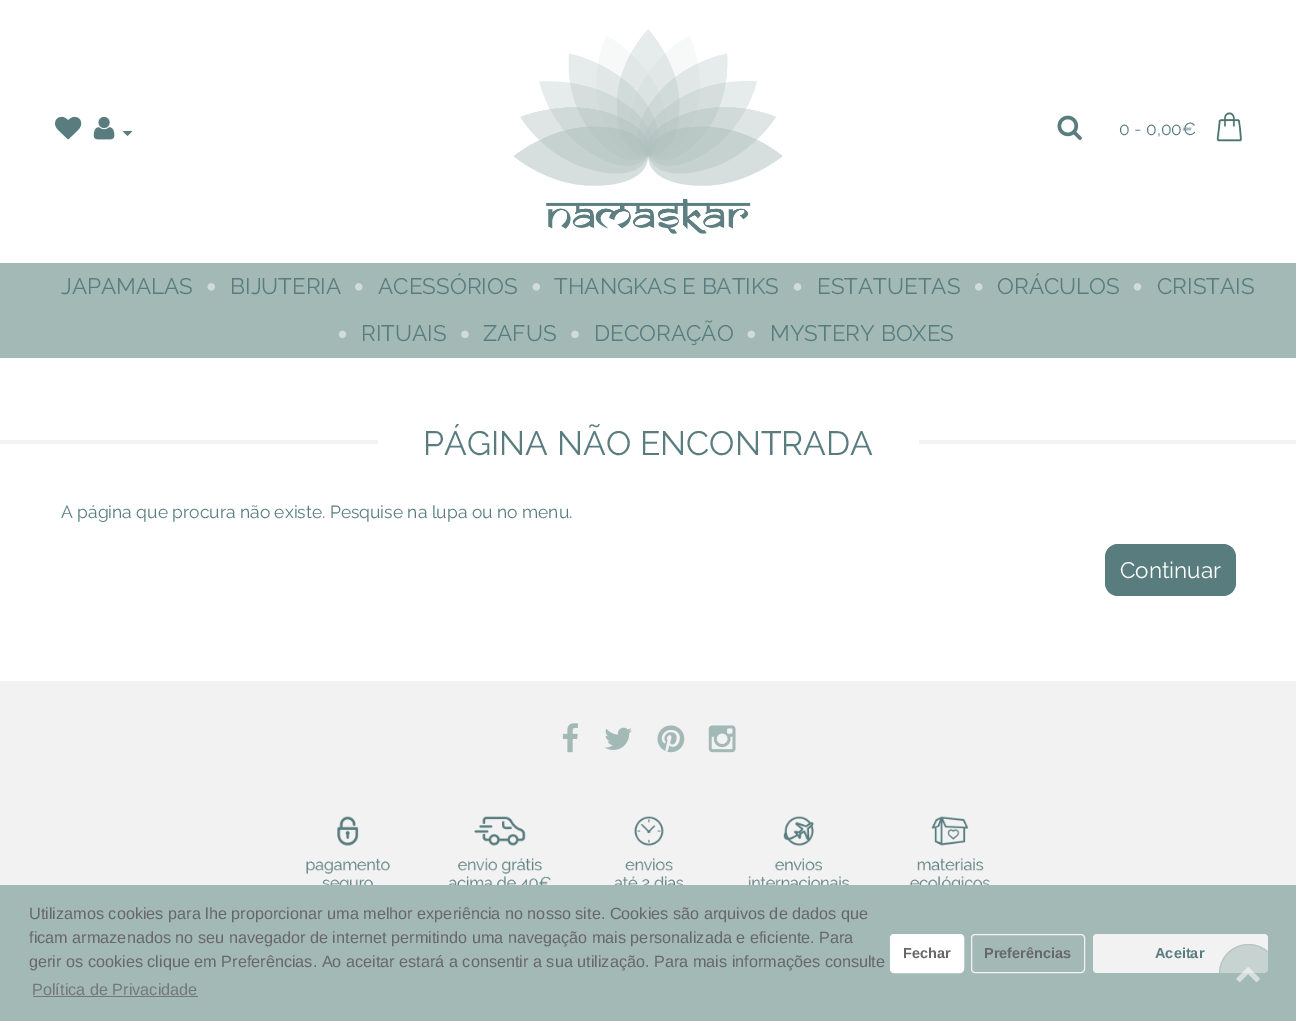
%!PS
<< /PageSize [1296 1021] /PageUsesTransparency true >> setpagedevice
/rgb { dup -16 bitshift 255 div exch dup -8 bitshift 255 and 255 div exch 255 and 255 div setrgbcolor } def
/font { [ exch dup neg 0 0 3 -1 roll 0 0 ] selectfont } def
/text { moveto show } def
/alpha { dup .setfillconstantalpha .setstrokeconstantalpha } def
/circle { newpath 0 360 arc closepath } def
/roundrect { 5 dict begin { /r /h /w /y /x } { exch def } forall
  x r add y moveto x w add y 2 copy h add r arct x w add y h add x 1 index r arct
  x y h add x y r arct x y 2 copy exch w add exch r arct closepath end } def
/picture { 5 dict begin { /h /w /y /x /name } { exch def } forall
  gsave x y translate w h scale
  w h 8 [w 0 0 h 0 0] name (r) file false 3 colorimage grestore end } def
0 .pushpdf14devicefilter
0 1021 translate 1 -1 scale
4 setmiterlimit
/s1 { /Raleway-Regular 17.5 font 16#597D7F rgb } def
/s2 { /Raleway-Regular 22.5 font 16#597D7F rgb } def
/s3 { /Raleway-Regular 33.75 font 16#597D7F rgb } def
/s4 { /Raleway-Regular 22.5 font 16#FFFFFF rgb } def
/s5 { /LiberationSans-Regular 16.25 font 16#676767 rgb } def
/s6 { /LiberationSans-Regular 16.25 font 16#737777 rgb } def
/s7 { /LiberationSans-Bold 14.5 font 16#676767 rgb } def
/s8 { /LiberationSans-Bold 14.5 font 16#597D7F rgb } def
16#FFFFFF rgb
0 0 1296 1021 rectfill
(pic1.raw) 55 116 27 24 picture
(pic2.raw) 93 116 22 24 picture
16#597D7F rgb
122.5 131 moveto 132.5 131 lineto 127.5 136 lineto closepath fill
(pic3.raw) 513 29 270 205 picture
(pic4.raw) 1057 115 25 25 picture
s1
(0 - 0,00€) 1119 135 text
(pic5.raw) 1216 112 27 30 picture
16#A3B9B5 rgb
0 263 1296 95 rectfill
s2
(JAPAMALAS) 61 294 text
(pic6.raw) 207 283 8 8 picture
(BIJUTERIA) 230 294 text
(pic7.raw) 355 283 8 8 picture
(ACESSÓRIOS) 378 294 text
(pic6.raw) 532 283 8 8 picture
(THANGKAS E BATIKS) 554 294 text
(pic8.raw) 793 283 9 8 picture
(ESTATUETAS) 817 294 text
(pic7.raw) 975 283 8 8 picture
(ORÁCULOS) 997 294 text
(pic8.raw) 1133 283 9 8 picture
(CRISTAIS) 1157 294 text
(pic9.raw) 338 330 9 9 picture
(RITUAIS) 361 341 text
(pic10.raw) 461 330 8 8 picture
(ZAFUS) 483 341 text
(pic10.raw) 571 330 8 8 picture
(DECORAÇÃO) 594 341 text
(pic11.raw) 747 330 8 9 picture
(MYSTERY BOXES) 770 341 text
16#F2F2F2 rgb
0 440 1296 4 rectfill
16#FFFFFF rgb
378 440 541 4 rectfill
s3
(PÁGINA NÃO ENCONTRADA) 423 455 text
s1
(A página que procura não existe. Pesquise na lupa ou no menu.) 61 518 text
1105 544 131 52 13 roundrect fill
s4
(Continuar) 1120 578 text
16#F2F2F2 rgb
0 681 1296 204 rectfill
(pic12.raw) 562 723 16 30 picture
(pic13.raw) 604 727 28 23 picture
(pic14.raw) 657 725 28 28 picture
(pic15.raw) 708 725 28 28 picture
(pic16.raw) 306 816 684 69 picture
16#A3B9B5 rgb
0 885 1296 136 rectfill
16#F2F2F2 rgb
1093 934 175 39 4 roundrect fill
0.54 alpha
16#A3B9B5 rgb
1248.5 973.5 29.5 circle fill
1248.5 973.5 29 circle stroke
1 alpha
(pic17.raw) 1236 967 24 16 picture
s5
(Utilizamos cookies para lhe proporcionar uma melhor experiência no nosso site. Cookies são arquivos de dados que) 29 919 text
(ficam armazenados no seu navegador de internet permitindo uma navegação mais personalizada e eficiente. Para) 29 943 text
(gerir os cookies clique em Preferências. Ao aceitar estará a consentir a sua utilização. Para mais informações consulte) 29 967 text
s6
(Política de Privacidade) 32 995 text
33 996 165 1 rectfill
16#FFFFFF rgb
890.5 934.5 73 38 3.5 roundrect gsave fill grestore
stroke
s7
(Fechar) 903 958 text
16#F2F2F2 rgb
971.5 934.5 113 38 3.5 roundrect stroke
s7
(Preferências) 984 958 text
s8
(Aceitar) 1155 958 text
.poppdf14devicefilter showpage
